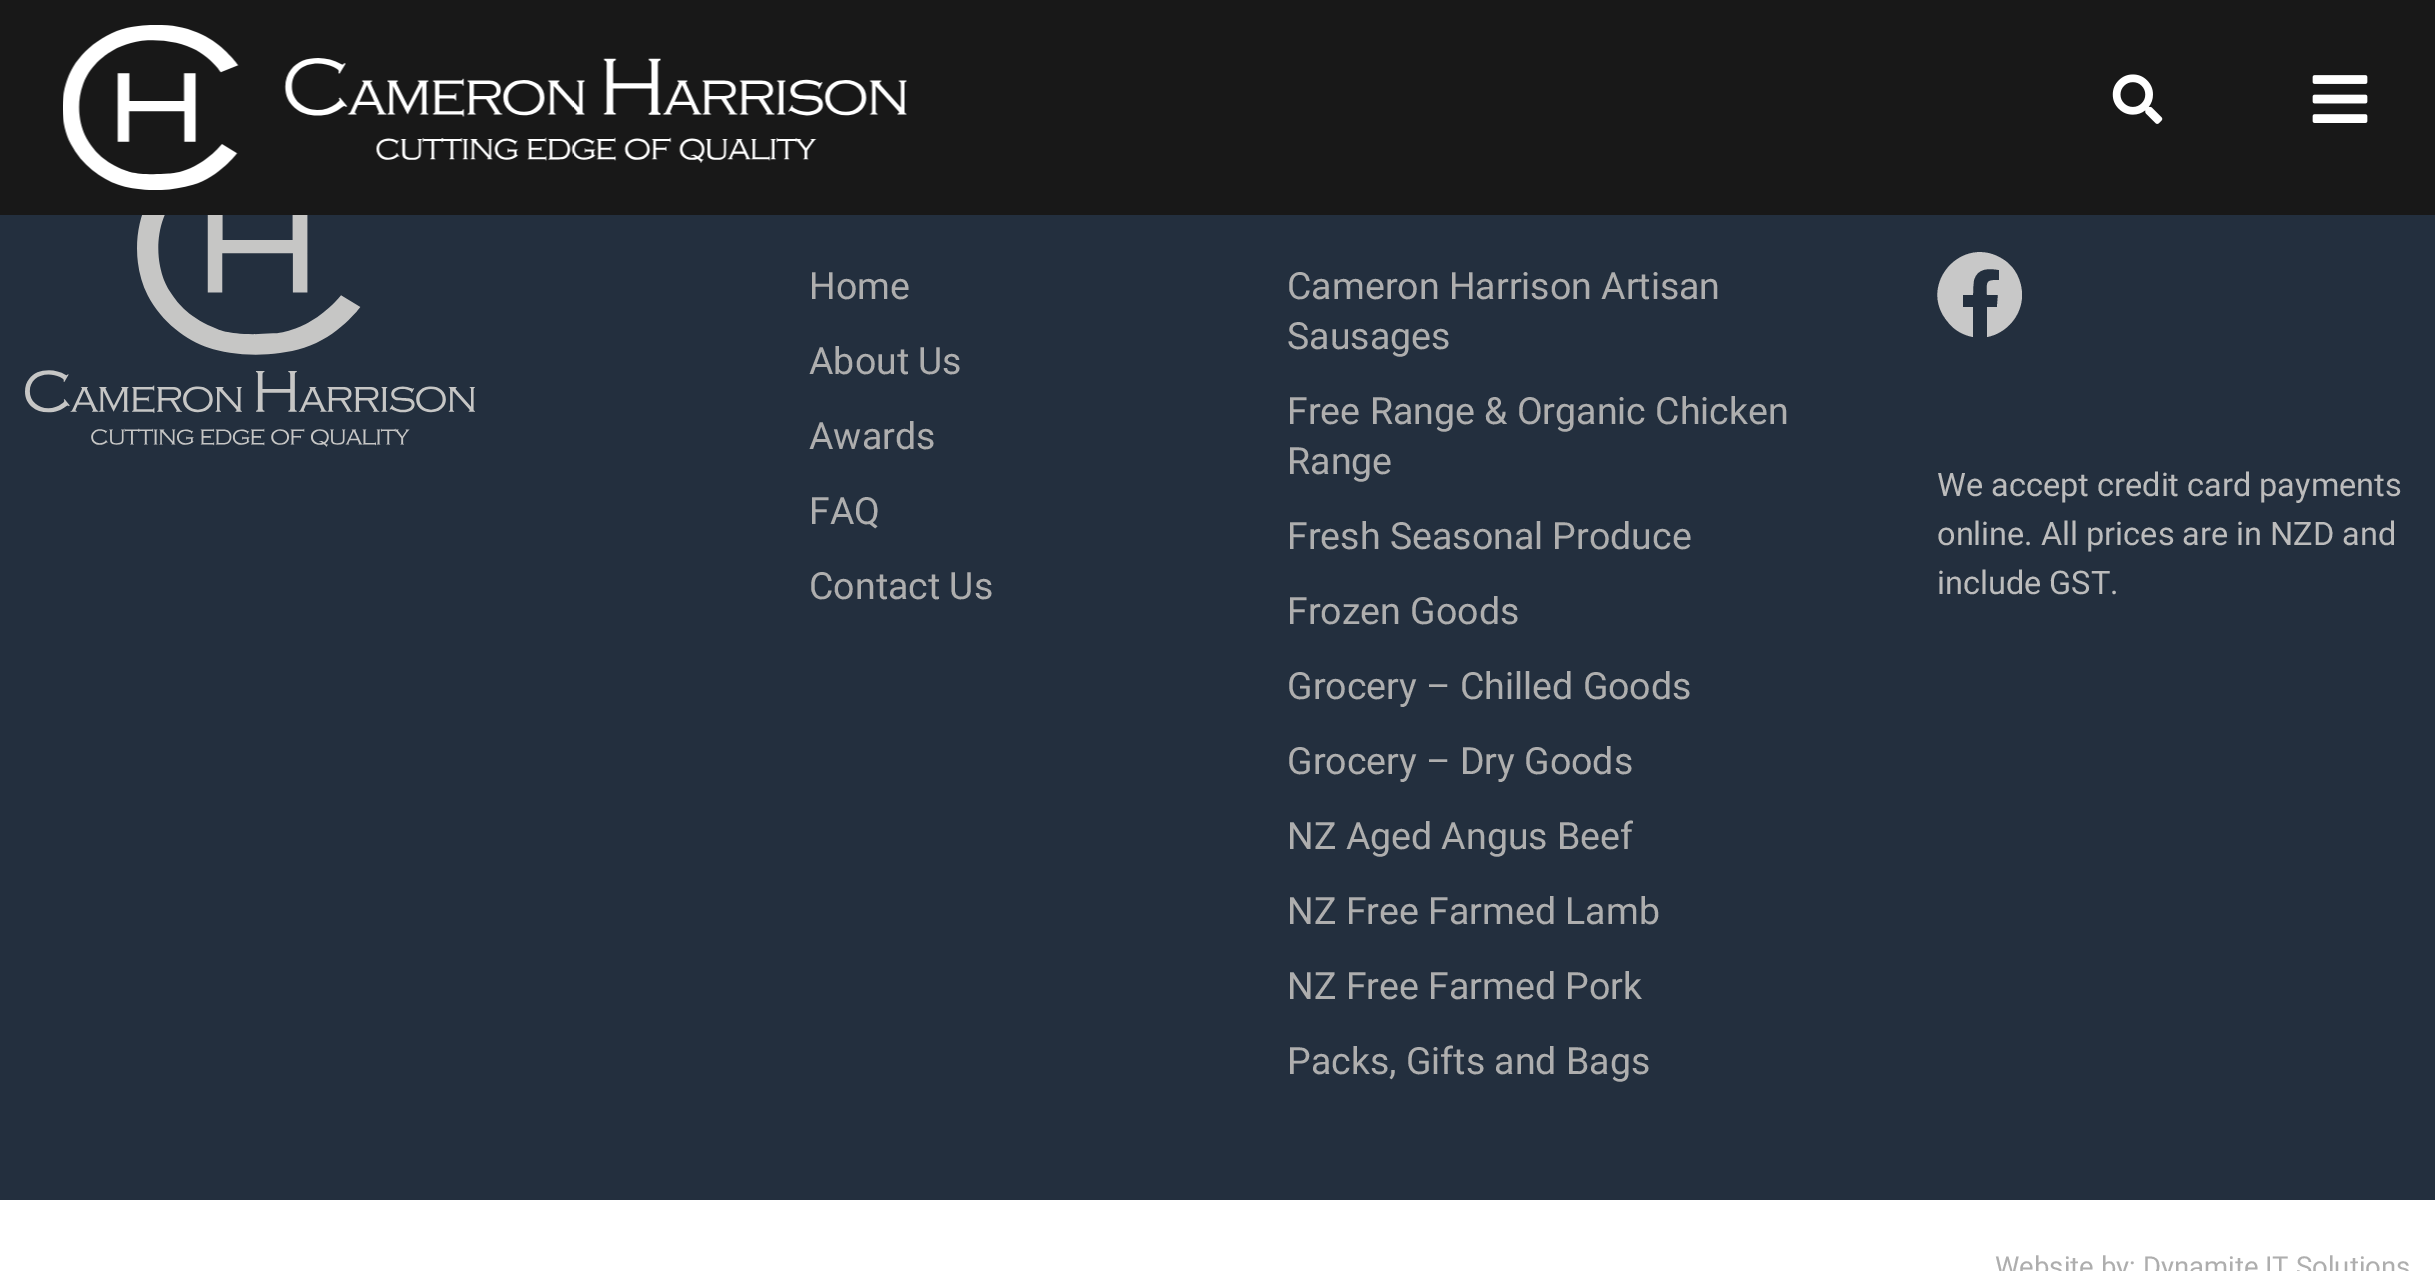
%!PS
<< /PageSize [2435 1271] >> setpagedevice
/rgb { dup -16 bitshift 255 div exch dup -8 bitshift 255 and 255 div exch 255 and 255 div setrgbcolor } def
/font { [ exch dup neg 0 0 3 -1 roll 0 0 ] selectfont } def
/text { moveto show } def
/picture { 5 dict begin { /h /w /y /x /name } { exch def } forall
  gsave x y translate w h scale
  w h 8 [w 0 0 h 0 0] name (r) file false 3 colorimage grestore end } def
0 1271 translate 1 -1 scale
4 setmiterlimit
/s1 { /Roboto-Regular 37.5 font 16#AEAEAE rgb } def
/s2 { /Roboto-Regular 32.5 font 16#BCBCBC rgb } def
/s3 { /Roboto-Regular 27.5 font 16#AEAEAE rgb } def
16#FFFFFF rgb
0 0 2435 1271 rectfill
16#181818 rgb
0 0 2435 215 rectfill
(pic1.raw) 63 25 844 165 picture
(pic2.raw) 2112 74 51 50 picture
(pic3.raw) 2312 75 56 48 picture
16#232F3E rgb
0 215 2435 985 rectfill
(pic4.raw) 25 215 450 232 picture
s1
(Home) 809 299 text
(About Us) 809 374 text
(Awards) 809 449 text
(FAQ) 809 524 text
(Contact Us) 809 599 text
(Cameron Harrison Artisan) 1287 299 text
(Sausages) 1287 349 text
(Free Range & Organic Chicken) 1287 424 text
(Range) 1287 474 text
(Fresh Seasonal Produce) 1287 549 text
(Frozen Goods) 1287 624 text
(Grocery – Chilled Goods) 1287 699 text
(Grocery – Dry Goods) 1287 774 text
(NZ Aged Angus Beef) 1287 849 text
(NZ Free Farmed Lamb) 1287 924 text
(NZ Free Farmed Pork) 1287 999 text
(Packs, Gifts and Bags) 1287 1074 text
16#C8C8C8 rgb
2022 295 moveto 2022 315 2007 333 1987 337 curveto 1987 307 lineto 1997 307 lineto 1998 295 lineto 1987 295 lineto 1987 282 1985 280 1999 280 curveto 1999 270 lineto 1989 268 1977 268 1974 280 curveto 1973 285 1973 290 1973 295 curveto 1963 295 lineto 1963 307 lineto 1973 307 lineto 1973 337 lineto 1963 335 1954 330 1948 322 curveto 1916 285 1963 232 2004 260 curveto 2015 267 2022 281 2022 295 curveto closepath fill
s2
(We accept credit card payments) 1937 496 text
(online. All prices are in NZD and) 1937 545 text
(include GST.) 1937 594 text
s3
(Website by: Dynamite IT Solutions) 1995 1276 text
showpage
